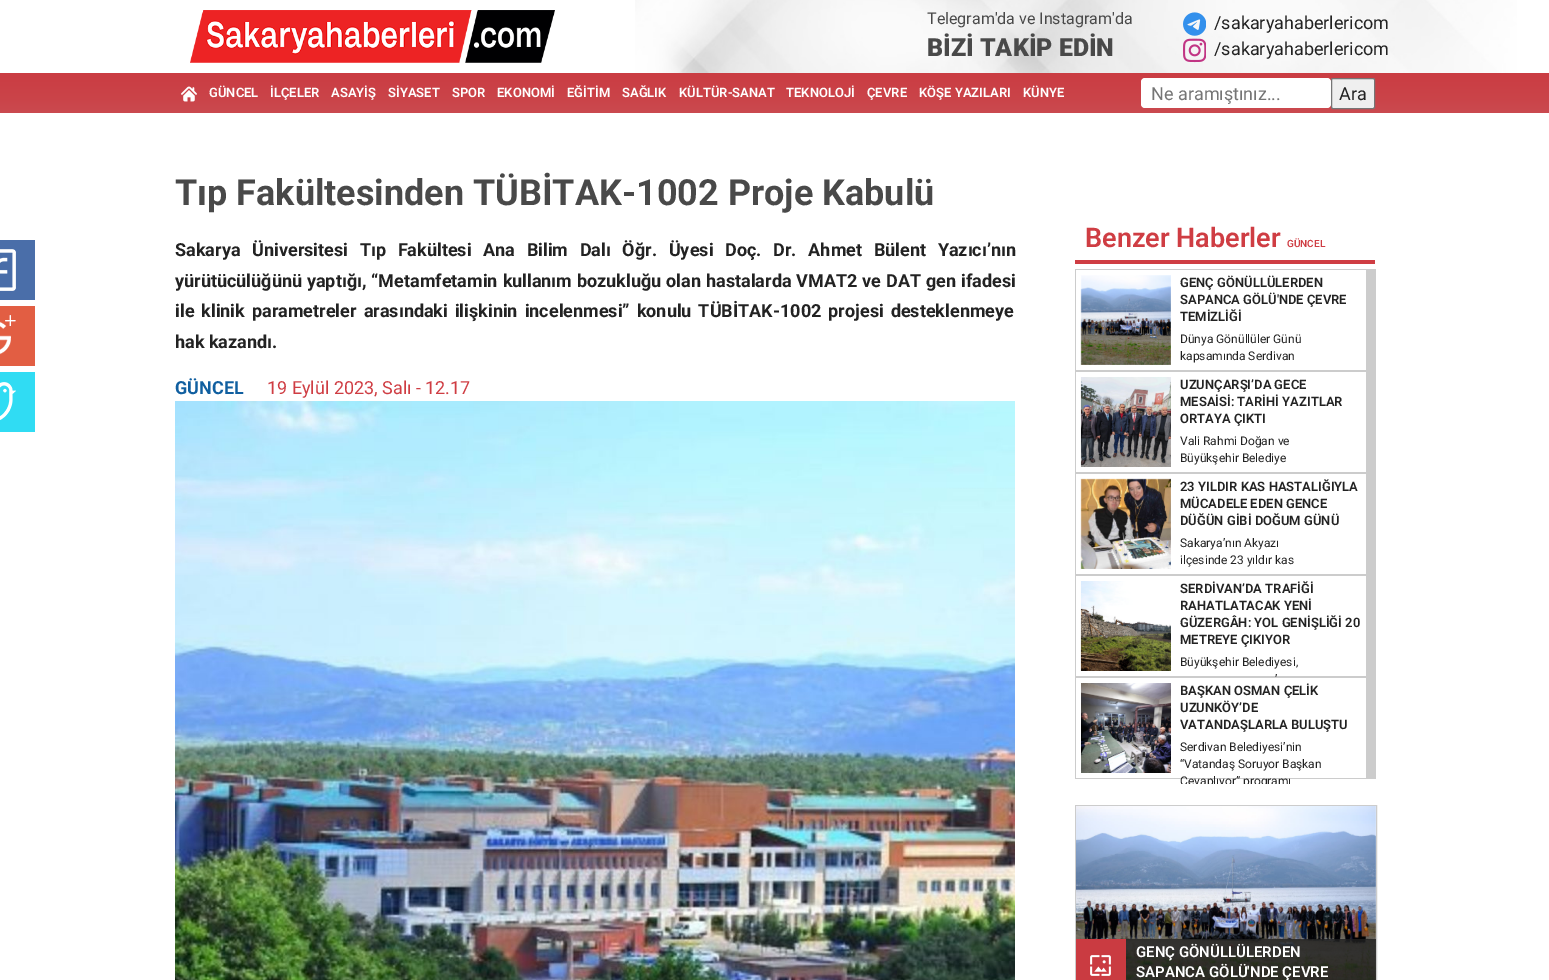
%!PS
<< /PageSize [1549 980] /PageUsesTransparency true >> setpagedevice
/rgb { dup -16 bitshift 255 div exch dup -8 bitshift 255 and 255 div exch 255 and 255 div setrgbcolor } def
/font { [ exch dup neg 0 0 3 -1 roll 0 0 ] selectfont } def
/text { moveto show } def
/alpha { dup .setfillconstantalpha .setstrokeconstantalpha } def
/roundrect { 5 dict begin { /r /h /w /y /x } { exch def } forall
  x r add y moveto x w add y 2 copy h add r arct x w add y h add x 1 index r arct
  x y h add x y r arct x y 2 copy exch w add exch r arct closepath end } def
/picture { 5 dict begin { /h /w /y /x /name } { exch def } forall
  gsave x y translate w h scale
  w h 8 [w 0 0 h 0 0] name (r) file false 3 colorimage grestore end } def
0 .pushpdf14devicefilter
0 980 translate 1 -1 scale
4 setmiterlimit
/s1 { /Roboto-Regular 16 font 16#494949 rgb } def
/s2 { /Roboto-Black 25 font 16#494949 rgb } def
/s3 { /Roboto-Regular 18 font 16#222222 rgb } def
/s4 { /Roboto-SemiBold 13 font 16#FFFFFF rgb } def
/s5 { /Roboto-Regular 18 font 16#757575 rgb } def
/s6 { /Roboto-Bold 36 font 16#494949 rgb } def
/s7 { /Roboto-Bold 18 font 16#222222 rgb } def
/s8 { /Roboto-Bold 18 font 16#105FA0 rgb } def
/s9 { /Roboto-Regular 18 font 16#CF3D43 rgb } def
/s10 { /Roboto-SemiBold 27 font 16#CF3D43 rgb } def
/s11 { /Roboto-SemiBold 10 font 16#CF3D43 rgb } def
/s12 { /Roboto-SemiBold 13 font 16#222222 rgb } def
/s13 { /Roboto-Regular 12 font 16#222222 rgb } def
/s14 { /Roboto-SemiBold 15 font 16#FFFFFF rgb } def
16#FFFFFF rgb
0 0 1549 980 rectfill
(pic1.raw) 635 0 882 73 picture
(pic2.raw) 190 10 365 53 picture
s1
(Telegram'da ve Instagram'da) 927 24 text
s2
(BİZİ TAKİP EDİN) 927 56 text
(pic3.raw) 1183 12 23 24 picture
s3
(/sakaryahaberlericom) 1214 29 text
(pic4.raw) 1183 38 23 25 picture
(/sakaryahaberlericom) 1214 55 text
(pic5.raw) 0 73 1549 40 picture
(pic6.raw) 181 86 16 16 picture
s4
(GÜNCEL) 209 97 text
(İLÇELER) 270 97 text
(ASAYİŞ) 331 97 text
(SİYASET) 388 97 text
(SPOR) 452 97 text
(EKONOMİ) 497 97 text
(EĞİTİM) 567 97 text
(SAĞLIK) 622 97 text
(KÜLTÜR-SANAT) 679 97 text
(TEKNOLOJİ) 786 97 text
(ÇEVRE) 867 97 text
(KÖŞE YAZILARI) 919 97 text
(KÜNYE) 1023 97 text
1141 78 190 30 4 roundrect fill
s5
(Ne aramıştınız...) 1151 100 text
16#EFEFEF rgb
1331.5 78.5 43 30 1.5 roundrect gsave fill grestore
16#767676 rgb
stroke
s3
(Ara) 1339 100 text
16#4A6EA9 rgb
0 240 35 60 rectfill
(pic7.raw) 0 249 16 42 picture
16#E25E43 rgb
0 306 35 60 rectfill
(pic8.raw) 0 315 16 40 picture
16#30DCF3 rgb
0 372 35 60 rectfill
(pic9.raw) 0 382 16 38 picture
s6
(Tıp Fakültesinden TÜBİTAK-1002 Proje Kabulü) 175 205 text
/Roboto-Bold 18 font
16#222222 rgb
175 256 moveto 7.25 0 32 (Sakarya Üniversitesi Tıp Fakültesi Ana Bilim Dalı Öğr. Üyesi Doç. Dr. Ahmet Bülent Yazıcı’nın) widthshow
175 287 moveto 0.5 0 32 (yürütücülüğünü yaptığı, “Metamfetamin kullanım bozukluğu olan hastalarda VMAT2 ve DAT gen ifadesi) widthshow
175 317 moveto 2.5 0 32 (ile klinik parametreler arasındaki ilişkinin incelenmesi” konulu TÜBİTAK-1002 projesi desteklenmeye) widthshow
(hak kazandı.) 175 348 text
s8
(GÜNCEL) 175 394 text
s9
(19 Eylül 2023, Salı - 12.17) 267 394 text
(pic10.raw) 175 401 840 579 picture
1075 260 300 4 rectfill
s10
(Benzer Haberler) 1085 247 text
s11
(GÜNCEL) 1287 247 text
16#CCCCCC rgb
1075 269 291 1 rectfill
1366 269 10 101 rectfill
1075 370 301 1 rectfill
1075 269 1 102 rectfill
(pic11.raw) 1080 275 91 90 picture
s12
(GENÇ GÖNÜLLÜLERDEN) 1180 287 text
(SAPANCA GÖLÜ'NDE ÇEVRE) 1180 304 text
(TEMİZLİĞİ) 1180 321 text
s13
(Dünya Gönüllüler Günü) 1180 343 text
(kapsamında Serdivan) 1180 360 text
16#CCCCCC rgb
1075 371 291 1 rectfill
1366 371 10 101 rectfill
1075 472 301 1 rectfill
1075 371 1 102 rectfill
(pic12.raw) 1080 377 91 90 picture
s12
(UZUNÇARŞI’DA GECE) 1180 389 text
(MESAİSİ: TARİHİ YAZITLAR) 1180 406 text
(ORTAYA ÇIKTI) 1180 423 text
s13
(Vali Rahmi Doğan ve) 1180 445 text
(Büyükşehir Belediye) 1180 462 text
16#CCCCCC rgb
1075 473 291 1 rectfill
1366 473 10 101 rectfill
1075 574 301 1 rectfill
1075 473 1 102 rectfill
(pic13.raw) 1080 478 91 91 picture
s12
(23 YILDIR KAS HASTALIĞIYLA) 1180 491 text
(MÜCADELE EDEN GENCE) 1180 508 text
(DÜĞÜN GİBİ DOĞUM GÜNÜ) 1180 525 text
s13
(Sakarya’nın Akyazı) 1180 547 text
(ilçesinde 23 yıldır kas) 1180 564 text
16#CCCCCC rgb
1075 575 291 1 rectfill
1366 575 10 101 rectfill
1075 676 301 1 rectfill
1075 575 1 102 rectfill
(pic14.raw) 1080 581 91 90 picture
s12
(SERDİVAN’DA TRAFİĞİ) 1180 593 text
(RAHATLATACAK YENİ) 1180 610 text
(GÜZERGÂH: YOL GENİŞLİĞİ 20) 1180 627 text
(METREYE ÇIKIYOR) 1180 644 text
s13
(Büyükşehir Belediyesi,) 1180 666 text
(’) 1275 683 text
16#CCCCCC rgb
1075 677 291 1 rectfill
1366 677 10 101 rectfill
1075 778 301 1 rectfill
1075 677 1 102 rectfill
(pic15.raw) 1081 683 90 90 picture
s12
(BAŞKAN OSMAN ÇELİK) 1180 695 text
(UZUNKÖY’DE) 1180 712 text
(VATANDAŞLARLA BULUŞTU) 1180 729 text
s13
(Serdivan Belediyesi’nin) 1180 751 text
(“Vatandaş Soruyor Başkan) 1180 768 text
gsave
1175 739 150 45 rectclip
(Cevaplıyor” programı) 1180 785 text
grestore
16#CCCCCC rgb
1075.5 805.5 301 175 rectstroke
(pic16.raw) 1076 806 300 174 picture
0.8 alpha
16#202020 rgb
1126 939 250 41 rectfill
1 alpha
16#CA3B41 rgb
1076 939 50 41 rectfill
(pic17.raw) 1090 955 21 21 picture
s14
(GENÇ GÖNÜLLÜLERDEN) 1136 957 text
(SAPANCA GÖLÜ'NDE ÇEVRE) 1136 977 text
.poppdf14devicefilter showpage
